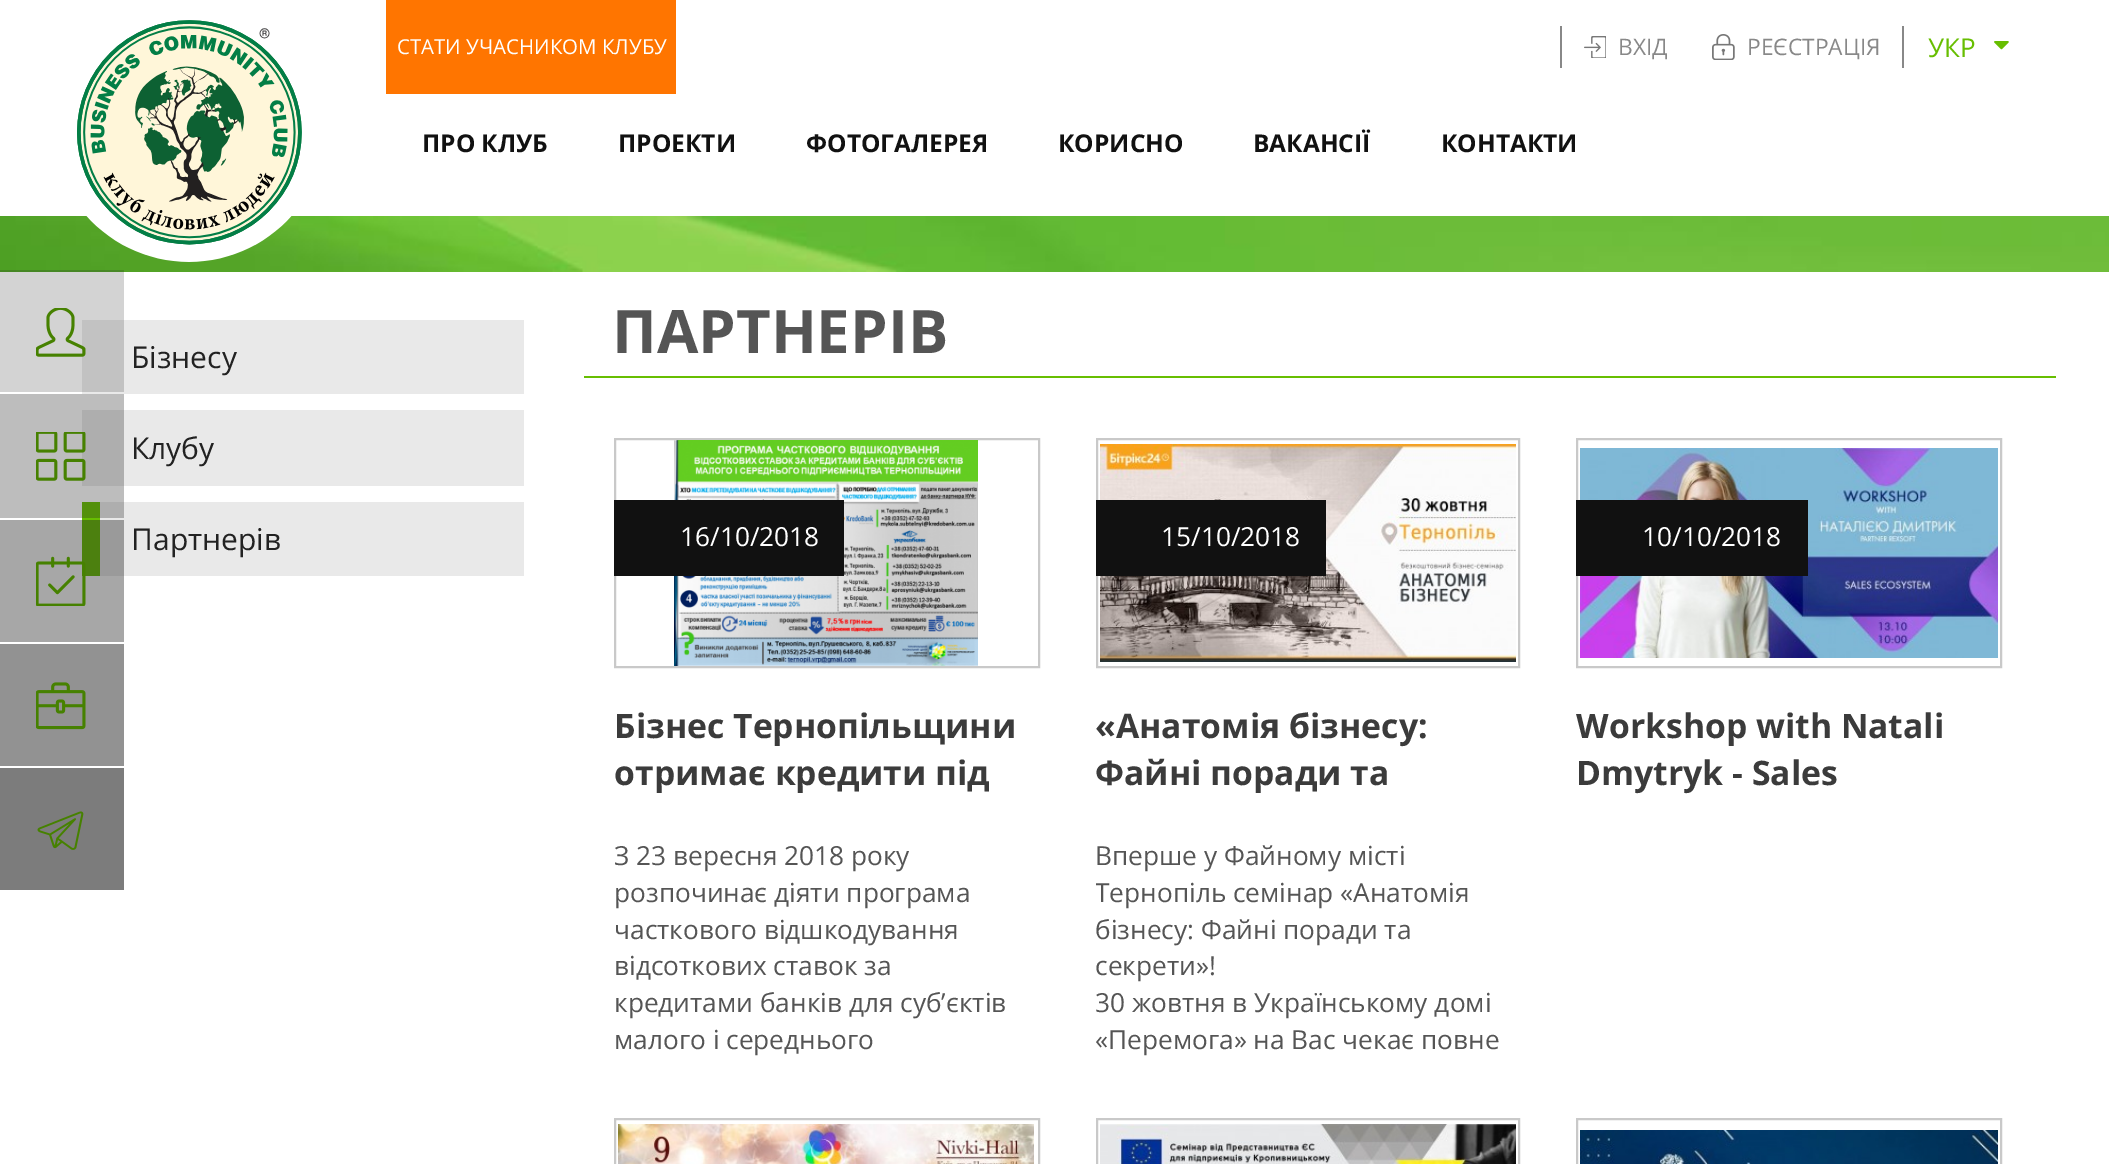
%!PS
<< /PageSize [2109 1164] /PageUsesTransparency true >> setpagedevice
/rgb { dup -16 bitshift 255 div exch dup -8 bitshift 255 and 255 div exch 255 and 255 div setrgbcolor } def
/font { [ exch dup neg 0 0 3 -1 roll 0 0 ] selectfont } def
/text { moveto show } def
/alpha { dup .setfillconstantalpha .setstrokeconstantalpha } def
/picture { 5 dict begin { /h /w /y /x /name } { exch def } forall
  gsave x y translate w h scale
  w h 8 [w 0 0 h 0 0] name (r) file false 3 colorimage grestore end } def
0 .pushpdf14devicefilter
0 1164 translate 1 -1 scale
4 setmiterlimit
/s1 { /OpenSans-Regular 20.5 font 16#FFFFFF rgb } def
/s2 { /OpenSans-Regular 22.75 font 16#888888 rgb } def
/s3 { /OpenSans-Regular 26 font 16#67BE01 rgb } def
/s4 { /OpenSans-Bold 24.5 font 16#111111 rgb } def
/s5 { /OpenSans-Regular 30 font 16#222222 rgb } def
/s6 { /OpenSans-Bold 60 font 16#555555 rgb } def
/s7 { /OpenSans-Regular 26.25 font 16#FFFFFF rgb } def
/s8 { /OpenSans-Bold 33.75 font 16#3B3B3B rgb } def
/s9 { /OpenSans-Regular 26.25 font 16#555555 rgb } def
16#FFFFFF rgb
0 0 2109 1164 rectfill
16#A7A7A7 rgb
0 520 124 122 rectfill
16#BDBDBD rgb
0 394 124 124 rectfill
(pic10.raw) 0 216 2109 56 picture
(pic1.raw) 77 20 225 242 picture
16#FF7500 rgb
386 0 290 94 rectfill
s1
(СТАТИ УЧАСНИКОМ КЛУБУ) 397 54 text
16#888888 rgb
1560 26 2 42 rectfill
(pic2.raw) 1584 36 22 22 picture
s2
(ВХІД) 1618 55 text
(pic3.raw) 1712 34 23 26 picture
(РЕЄСТРАЦІЯ) 1747 55 text
1902 26 2 42 rectfill
s3
(УКР) 1928 57 text
(pic4.raw) 1994 41 15 9 picture
s4
(ПРО КЛУБ) 422 152 text
(ПРОЕКТИ) 618 152 text
(ФОТОГАЛЕРЕЯ) 806 152 text
(КОРИСНО) 1058 152 text
(ВАКАНСІЇ) 1253 152 text
(КОНТАКТИ) 1441 152 text
16#E9E9E9 rgb
82 320 442 74 rectfill
0.2 alpha
16#242424 rgb
0 270 124 122 rectfill
1 alpha
(pic5.raw) 36 308 50 49 picture
16#AEAEAE rgb
82 410 42 76 rectfill
(pic6.raw) 36 432 50 49 picture
16#4C800F rgb
82 520 18 56 rectfill
(pic7.raw) 36 556 50 50 picture
16#929292 rgb
0 644 124 122 rectfill
(pic8.raw) 36 682 50 48 picture
16#7C7C7C rgb
0 768 124 122 rectfill
(pic9.raw) 37 811 47 39 picture
s5
(Бізнесу) 131 368 text
16#E9E9E9 rgb
124 410 400 76 rectfill
s5
(Клубу) 131 459 text
16#E9E9E9 rgb
100 502 424 74 rectfill
16#9A9A9A rgb
100 520 24 56 rectfill
16#AEAEAE rgb
100 502 24 16 rectfill
16#67BE01 rgb
82 518 18 2 rectfill
16#53900B rgb
82 502 18 16 rectfill
s5
(Партнерів) 131 550 text
16#67BE01 rgb
584 376 1472 2 rectfill
s6
(ПАРТНЕРІВ) 612 353 text
16#C9C9C9 rgb
2 setlinewidth
615 439 424 228 rectstroke
(pic11.raw) 674 440 304 226 picture
16#111111 rgb
614 500 230 76 rectfill
s7
(16/10/2018) 680 546 text
s8
(Бізнес Тернопільщини) 614 738 text
(отримає кредити під) 614 785 text
s9
(З 23 вересня 2018 року) 614 865 text
(розпочинає діяти програма) 614 902 text
(часткового відшкодування) 614 939 text
(відсоткових ставок за) 614 975 text
(кредитами банків для суб’єктів) 614 1012 text
(малого і середнього) 614 1049 text
16#C9C9C9 rgb
1097 439 422 228 rectstroke
(pic12.raw) 1100 444 416 218 picture
16#111111 rgb
1096 500 230 76 rectfill
s7
(15/10/2018) 1161 546 text
s8
(«Анатомія бізнесу:) 1095 738 text
(Файні поради та) 1095 785 text
s9
(Вперше у Файному місті) 1095 865 text
gsave
1096 838 420 220 rectclip
(Тернопіль семінар «Анатомія) 1095 902 text
grestore
(бізнесу: Файні поради та) 1095 939 text
(секрети»!) 1095 975 text
(30 жовтня в Українському домі) 1095 1012 text
(«Перемога» на Вас чекає повне) 1095 1049 text
16#C9C9C9 rgb
1577 439 424 228 rectstroke
(pic13.raw) 1580 448 418 210 picture
16#111111 rgb
1576 500 232 76 rectfill
s7
(10/10/2018) 1642 546 text
s8
(Workshop with Natali) 1576 738 text
(Dmytryk - Sales) 1576 785 text
16#C9C9C9 rgb
615 1119 424 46 rectstroke
(pic14.raw) 618 1124 416 40 picture
1097 1119 422 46 rectstroke
(pic15.raw) 1100 1124 416 40 picture
1577 1119 424 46 rectstroke
(pic16.raw) 1580 1130 418 34 picture
.poppdf14devicefilter showpage
